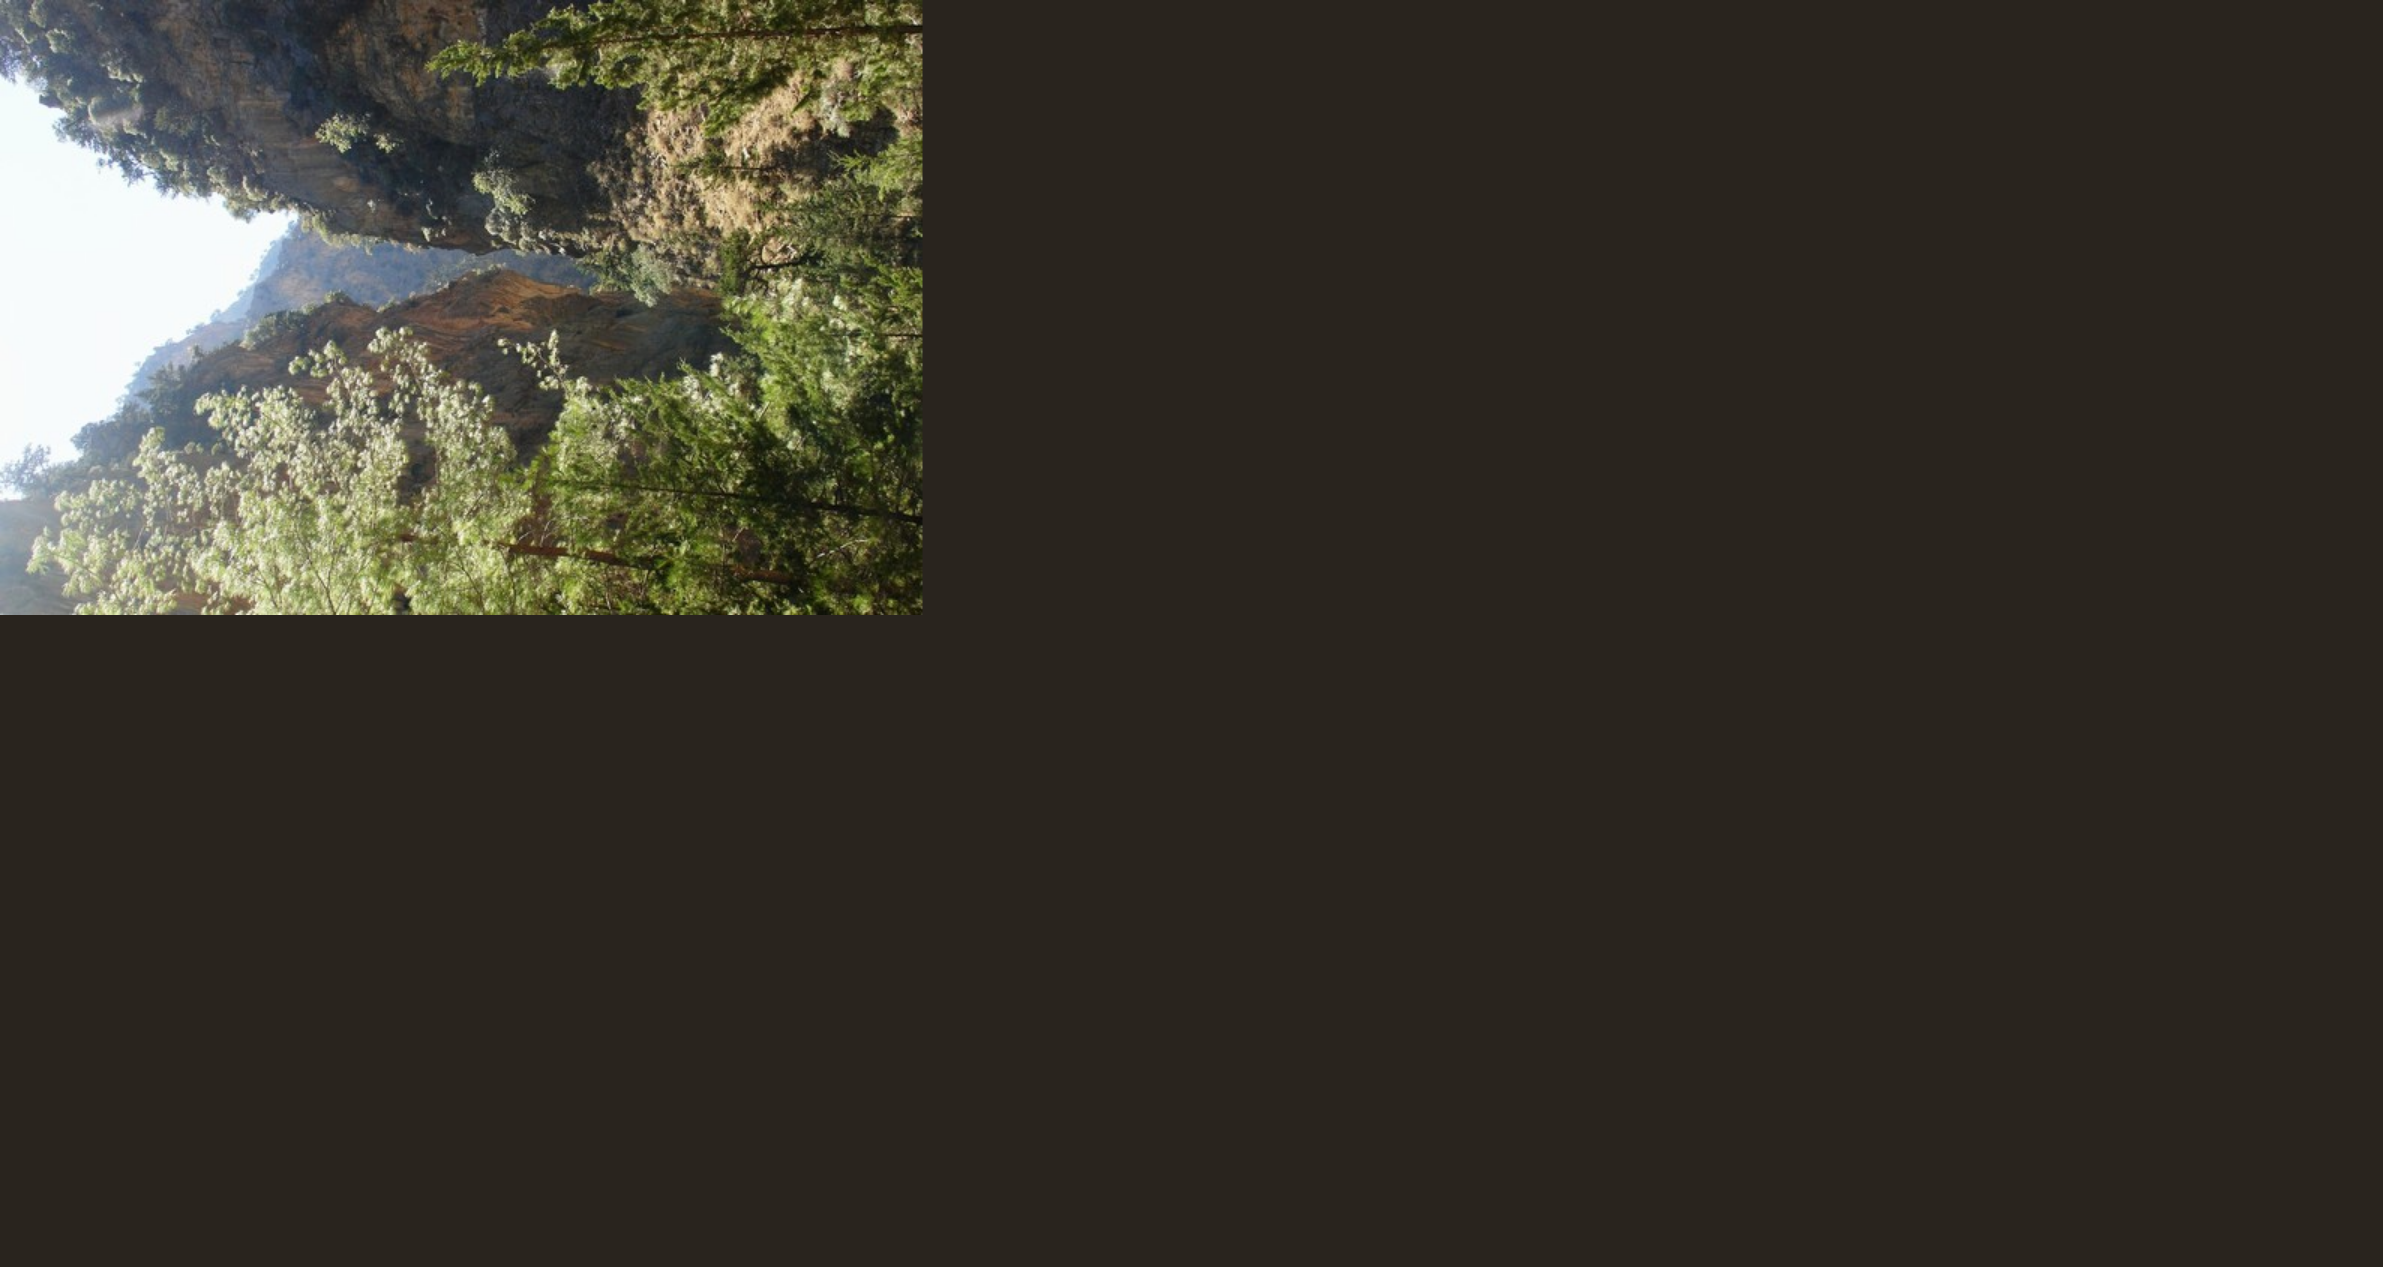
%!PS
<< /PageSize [2383 1267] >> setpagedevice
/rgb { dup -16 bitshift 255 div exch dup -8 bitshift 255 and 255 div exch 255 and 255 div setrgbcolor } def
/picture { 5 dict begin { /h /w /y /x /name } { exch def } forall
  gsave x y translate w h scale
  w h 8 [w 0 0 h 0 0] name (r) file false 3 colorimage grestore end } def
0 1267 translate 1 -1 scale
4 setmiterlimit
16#29241E rgb
0 0 2383 1267 rectfill
(pic1.raw) 0 0 923 615 picture
showpage
